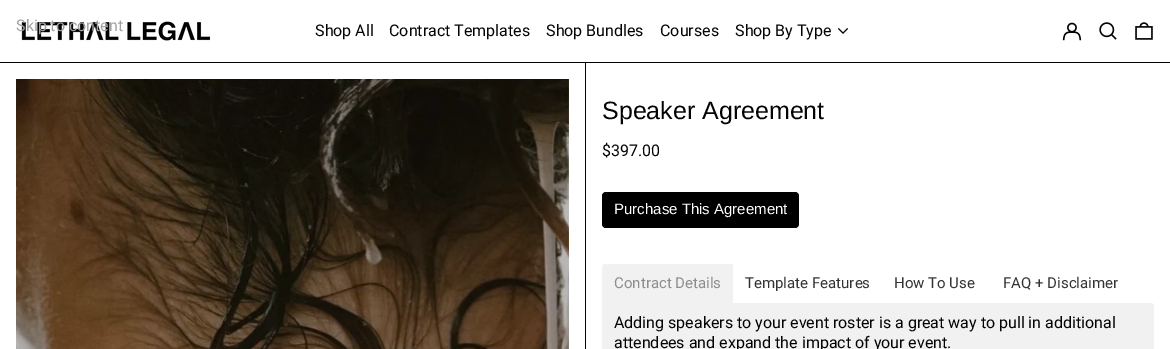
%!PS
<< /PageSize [1170 349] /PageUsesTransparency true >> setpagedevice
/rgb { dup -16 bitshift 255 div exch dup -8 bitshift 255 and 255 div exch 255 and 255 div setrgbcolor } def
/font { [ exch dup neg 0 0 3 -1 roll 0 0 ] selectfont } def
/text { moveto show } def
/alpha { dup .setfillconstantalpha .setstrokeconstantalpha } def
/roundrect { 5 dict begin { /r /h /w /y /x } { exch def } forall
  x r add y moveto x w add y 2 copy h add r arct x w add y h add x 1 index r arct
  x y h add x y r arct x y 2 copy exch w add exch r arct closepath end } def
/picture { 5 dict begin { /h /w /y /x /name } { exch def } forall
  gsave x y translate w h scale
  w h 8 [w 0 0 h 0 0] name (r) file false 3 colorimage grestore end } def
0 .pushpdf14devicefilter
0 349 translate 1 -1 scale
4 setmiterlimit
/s1 { /Roboto-Regular 16 font 16#A2A2A2 rgb } def
/s2 { /Roboto-Regular 16 font 16#030303 rgb } def
/s3 { /Arimo-Regular 25 font 16#030303 rgb } def
/s4 { /LiberationSans-Regular 15 font 16#FFFFFF rgb } def
/s5 { /Roboto-Regular 15 font 16#8D8D8D rgb } def
/s6 { /Roboto-Regular 15 font 16#333333 rgb } def
16#FFFFFF rgb
0 0 1170 349 rectfill
(pic1.raw) 21 21 190 20 picture
s1
(Skip to content) 16 31 text
s2
(Shop All) 315 36 text
(Contract Templates) 389 36 text
(Shop Bundles) 546 36 text
(Courses) 660 36 text
(Shop By Type) 735 36 text
(pic2.raw) 837 28 12 6 picture
(pic3.raw) 1062 22 20 19 picture
(pic4.raw) 1099 22 18 18 picture
(pic5.raw) 1135 22 18 18 picture
585 63 1 286 rectfill
0 62 1170 1 rectfill
(pic6.raw) 16 79 553 270 picture
s3
(Speaker Agreement) 602 119 text
s2
($397.00) 602 156 text
16#000000 rgb
602 192 197 36 4 roundrect fill
0.15 alpha
604 227 193 1 rectfill
1 alpha
s4
(Purchase This Agreement) 614 214 text
16#F1F1F1 rgb
605 264 moveto 733 264 lineto 733 303 lineto 602 303 lineto 602 267 lineto 602 265.5 603.5 264 605 264 curveto closepath fill
s5
(Contract Details) 614 288 text
s6
(Template Features) 745 288 text
(How To Use) 894 288 text
(FAQ + Disclaimer) 1003 288 text
16#F1F1F1 rgb
602 303 moveto 1151 303 lineto 1152.5 303 1154 304.5 1154 306 curveto 1154 349 lineto 1154 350.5 1152.5 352 1151 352 curveto 605 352 lineto 603.5 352 602 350.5 602 349 curveto closepath fill
s2
(Adding speakers to your event roster is a great way to pull in additional) 614 328 text
(attendees and expand the impact of your event.) 614 348 text
.poppdf14devicefilter showpage
